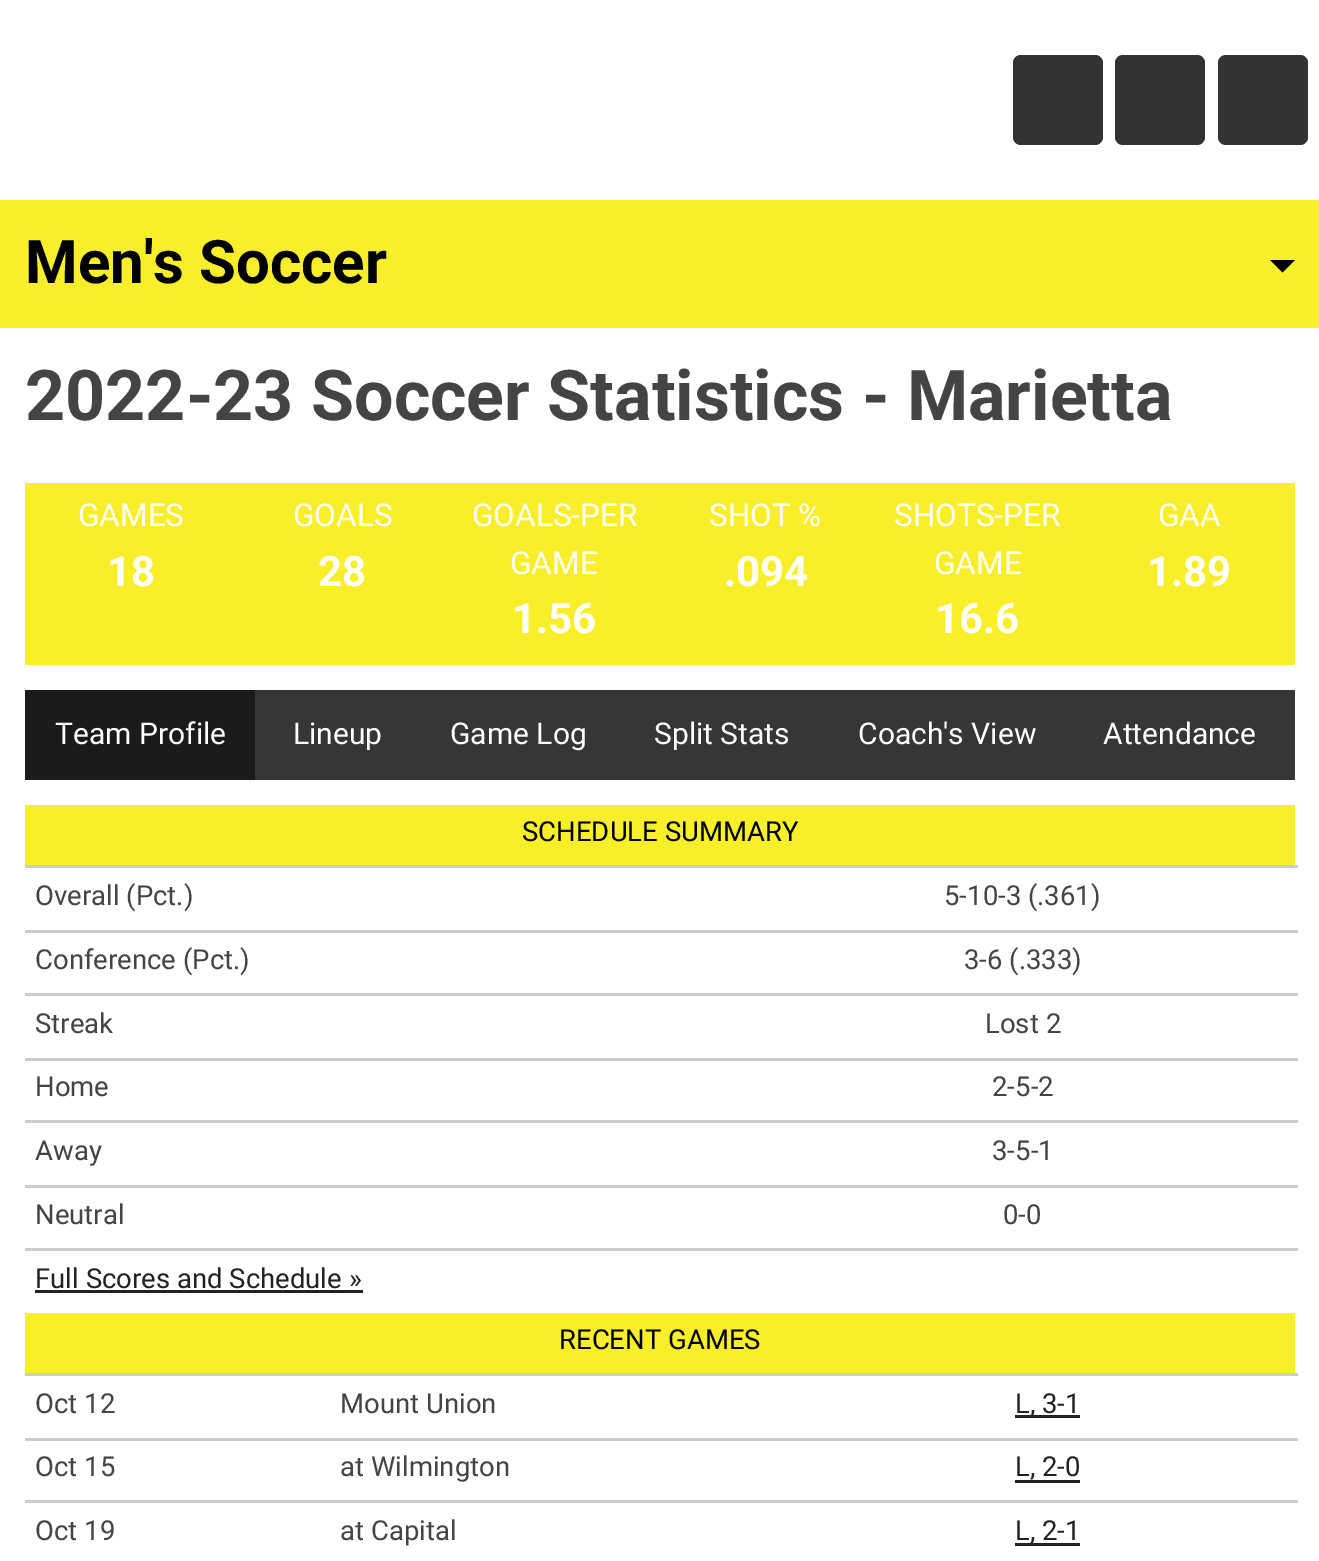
%!PS
<< /PageSize [1319 1561] >> setpagedevice
/rgb { dup -16 bitshift 255 div exch dup -8 bitshift 255 and 255 div exch 255 and 255 div setrgbcolor } def
/font { [ exch dup neg 0 0 3 -1 roll 0 0 ] selectfont } def
/text { moveto show } def
/roundrect { 5 dict begin { /r /h /w /y /x } { exch def } forall
  x r add y moveto x w add y 2 copy h add r arct x w add y h add x 1 index r arct
  x y h add x y r arct x y 2 copy exch w add exch r arct closepath end } def
0 1561 translate 1 -1 scale
4 setmiterlimit
/s1 { /Roboto-Bold 60 font 16#000000 rgb } def
/s2 { /Roboto-Bold 70 font 16#444444 rgb } def
/s3 { /Roboto-Regular 31.5 font 16#FFFFFF rgb } def
/s4 { /Roboto-Bold 42 font 16#FFFFFF rgb } def
/s5 { /Roboto-Regular 30 font 16#FFFFFF rgb } def
/s6 { /Roboto-Regular 27.5 font 16#000000 rgb } def
/s7 { /Roboto-Regular 27.5 font 16#444444 rgb } def
/s8 { /Roboto-Regular 27.5 font 16#222222 rgb } def
16#FFFFFF rgb
0 0 1319 1561 rectfill
16#333333 rgb
1013 55 90 90 8 roundrect fill
1115 55 90 90 8 roundrect fill
1218 55 90 90 8 roundrect fill
16#F8EE2A rgb
0 200 1319 128 rectfill
s1
(Men's Soccer) 25 283 text
1270 260 moveto 1295 260 lineto 1282.5 272.5 lineto closepath fill
s2
(2022-23 Soccer Statistics - Marietta) 25 420 text
16#F8EE2A rgb
25 483 1270 182 rectfill
s3
(GAMES) 78 526 text
s4
(18) 107 586 text
s3
(GOALS) 293 526 text
s4
(28) 318 586 text
s3
(GOALS-PER) 472 526 text
(GAME) 510 574 text
s4
(1.56) 512 633 text
s3
(SHOT %) 709 526 text
s4
(.094) 724 586 text
s3
(SHOTS-PER) 894 526 text
(GAME) 934 574 text
s4
(16.6) 935 633 text
s3
(GAA) 1158 526 text
s4
(1.89) 1147 586 text
16#363636 rgb
255 690 1040 90 rectfill
16#1B1B1B rgb
25 690 230 90 rectfill
s5
(Team Profile) 55 744 text
(Lineup) 293 744 text
(Game Log) 450 744 text
(Split Stats) 654 744 text
(Coach's View) 858 744 text
(Attendance) 1103 744 text
16#F8EE2A rgb
25 805 1270 60 rectfill
s6
(SCHEDULE SUMMARY) 522 841 text
s7
(Overall \(Pct.\)) 35 905 text
16#CCCCCC rgb
25 865 1273 3 rectfill
s7
(5-10-3 \(.361\)) 944 905 text
(Conference \(Pct.\)) 35 969 text
16#CCCCCC rgb
25 930 1273 3 rectfill
s7
(3-6 \(.333\)) 964 969 text
(Streak) 35 1033 text
16#CCCCCC rgb
25 993 1273 3 rectfill
s7
(Lost 2) 985 1033 text
(Home) 35 1096 text
16#CCCCCC rgb
25 1058 1273 3 rectfill
s7
(2-5-2) 992 1096 text
(Away) 35 1160 text
16#CCCCCC rgb
25 1120 1273 3 rectfill
s7
(3-5-1) 992 1160 text
(Neutral) 35 1224 text
16#CCCCCC rgb
25 1185 1273 3 rectfill
s7
(0-0) 1003 1224 text
16#CCCCCC rgb
25 1248 1273 3 rectfill
s8
(Full Scores and Schedule ») 35 1288 text
35 1290 328 3 rectfill
16#F8EE2A rgb
25 1313 1270 60 rectfill
s6
(RECENT GAMES) 559 1349 text
s7
(Oct 12) 35 1413 text
(Mount Union) 340 1413 text
16#CCCCCC rgb
25 1373 1273 3 rectfill
16#222222 rgb
1015 1415 65 3 rectfill
(L, 3-1) 1015 1413 text
s7
(Oct 15) 35 1476 text
(at Wilmington) 340 1476 text
16#CCCCCC rgb
25 1438 1273 3 rectfill
s8
(L, 2-0) 1015 1476 text
1015 1480 65 3 rectfill
s7
(Oct 19) 35 1540 text
(at Capital) 340 1540 text
16#CCCCCC rgb
25 1500 1273 3 rectfill
16#222222 rgb
1015 1543 65 3 rectfill
(L, 2-1) 1015 1540 text
showpage
